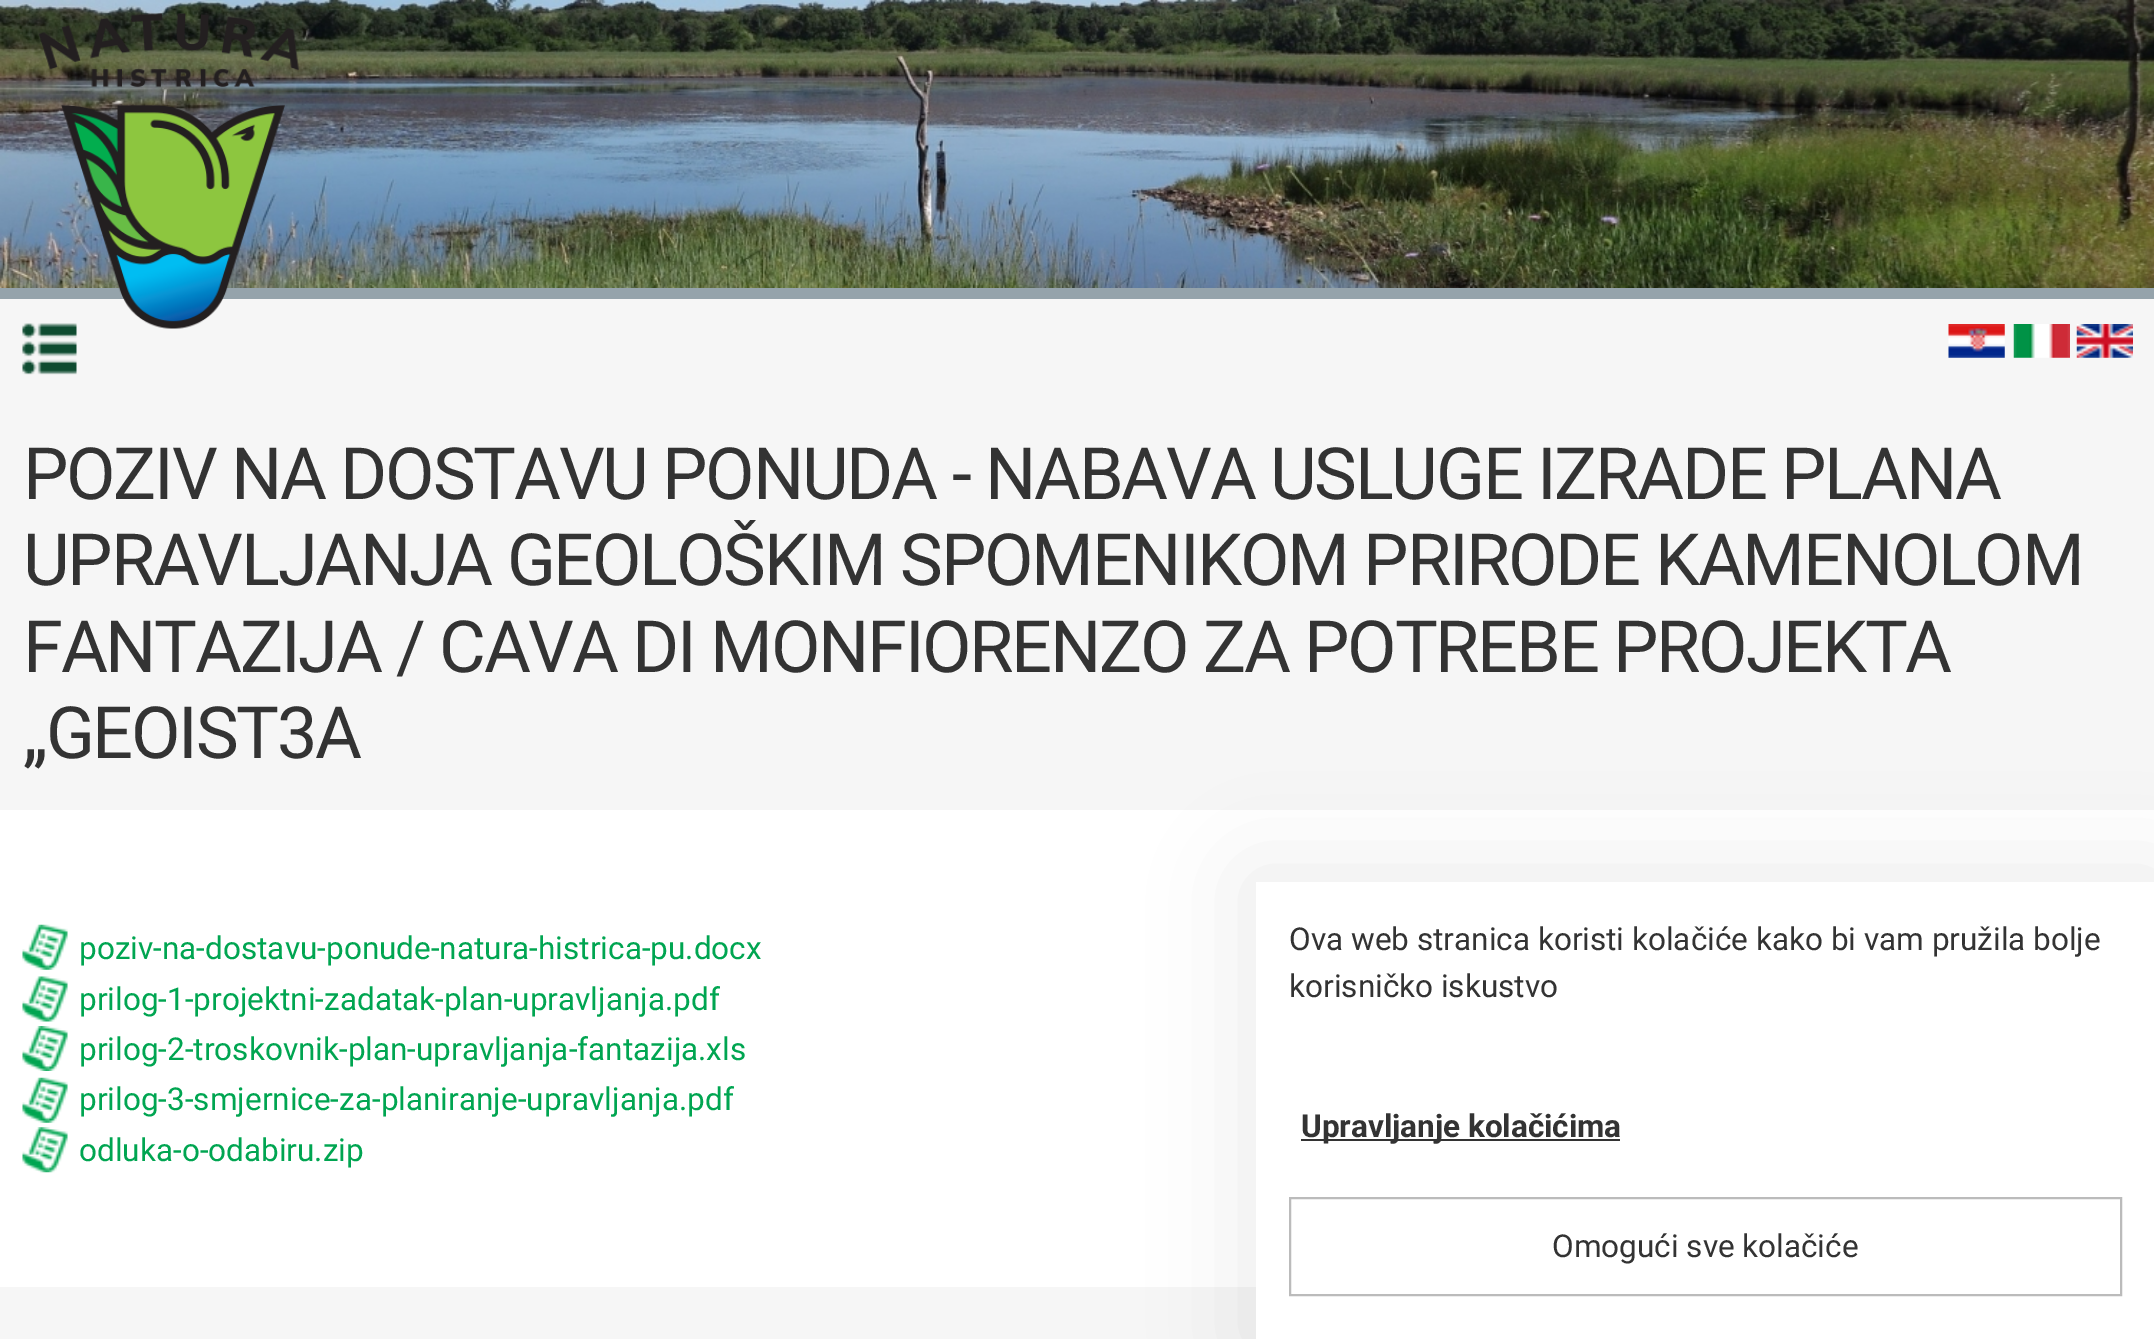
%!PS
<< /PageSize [2154 1339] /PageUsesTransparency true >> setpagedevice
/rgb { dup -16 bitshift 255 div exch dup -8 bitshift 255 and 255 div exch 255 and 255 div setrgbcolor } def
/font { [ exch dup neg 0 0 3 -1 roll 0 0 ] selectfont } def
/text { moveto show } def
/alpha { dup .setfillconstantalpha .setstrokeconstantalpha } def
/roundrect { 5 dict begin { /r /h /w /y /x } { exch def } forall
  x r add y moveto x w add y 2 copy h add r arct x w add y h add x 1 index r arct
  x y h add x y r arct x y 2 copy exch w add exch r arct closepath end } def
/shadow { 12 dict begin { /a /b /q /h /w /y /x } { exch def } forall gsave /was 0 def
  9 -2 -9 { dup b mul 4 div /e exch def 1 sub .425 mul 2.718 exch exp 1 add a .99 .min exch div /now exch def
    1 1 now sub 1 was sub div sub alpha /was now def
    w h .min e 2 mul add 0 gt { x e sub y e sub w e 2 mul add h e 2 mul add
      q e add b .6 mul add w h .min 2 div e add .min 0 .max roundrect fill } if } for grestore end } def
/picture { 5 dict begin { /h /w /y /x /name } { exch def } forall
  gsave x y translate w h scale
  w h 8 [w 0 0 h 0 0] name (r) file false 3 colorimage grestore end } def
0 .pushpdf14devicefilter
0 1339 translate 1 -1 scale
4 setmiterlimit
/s1 { /Roboto-Regular 31.5 font 16#00A551 rgb } def
/s2 { /Roboto-Regular 31.5 font 16#333333 rgb } def
/s3 { /Roboto-Bold 31.5 font 16#333333 rgb } def
16#FFFFFF rgb
0 0 2154 1339 rectfill
(pic1.raw) 0 0 2154 288 picture
16#F6F6F6 rgb
0 299 2154 511 rectfill
16#95A3AB rgb
0 288 2154 11 rectfill
(pic3.raw) 22 323 55 52 picture
(pic2.raw) 39 13 260 316 picture
(pic4.raw) 1948 324 57 34 picture
(pic5.raw) 2013 324 57 34 picture
(pic6.raw) 2076 324 57 34 picture
/Roboto-Regular 72 font
16#333333 rgb
23 499 moveto -2.25 0 (POZIV NA DOSTAVU PONUDA - NABAVA USLUGE IZRADE PLANA) ashow
23 585 moveto -2.25 0 (UPRAVLJANJA GEOLOŠKIM SPOMENIKOM PRIRODE KAMENOLOM) ashow
23 672 moveto -2.25 0 (FANTAZIJA / CAVA DI MONFIORENZO ZA POTREBE PROJEKTA) ashow
23 758 moveto -2.25 0 („GEOIST3A) ashow
(pic7.raw) 22 924 46 46 picture
s1
(poziv-na-dostavu-ponude-natura-histrica-pu.docx) 79 959 text
(pic8.raw) 22 976 46 46 picture
(prilog-1-projektni-zadatak-plan-upravljanja.pdf) 79 1010 text
(pic9.raw) 22 1026 46 45 picture
(prilog-2-troskovnik-plan-upravljanja-fantazija.xls) 79 1060 text
(pic7.raw) 22 1077 46 46 picture
(prilog-3-smjernice-za-planiranje-upravljanja.pdf) 79 1110 text
(pic10.raw) 22 1127 46 46 picture
(odluka-o-odabiru.zip) 79 1161 text
16#F6F6F6 rgb
0 1287 1256 52 rectfill
16#000000 rgb
1249 875 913 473 0 46 0.08 shadow
16#FFFFFF rgb
1256 882 898 457 rectfill
s2
(Ova web stranica koristi kolačiće kako bi vam pružila bolje) 1289 950 text
(korisničko iskustvo) 1289 997 text
1301 1139 319 2 rectfill
s3
(Upravljanje kolačićima) 1301 1137 text
16#BBBBBB rgb
2 setlinewidth
1290 1198 831 97 rectstroke
s2
(Omogući sve kolačiće) 1552 1257 text
.poppdf14devicefilter showpage
